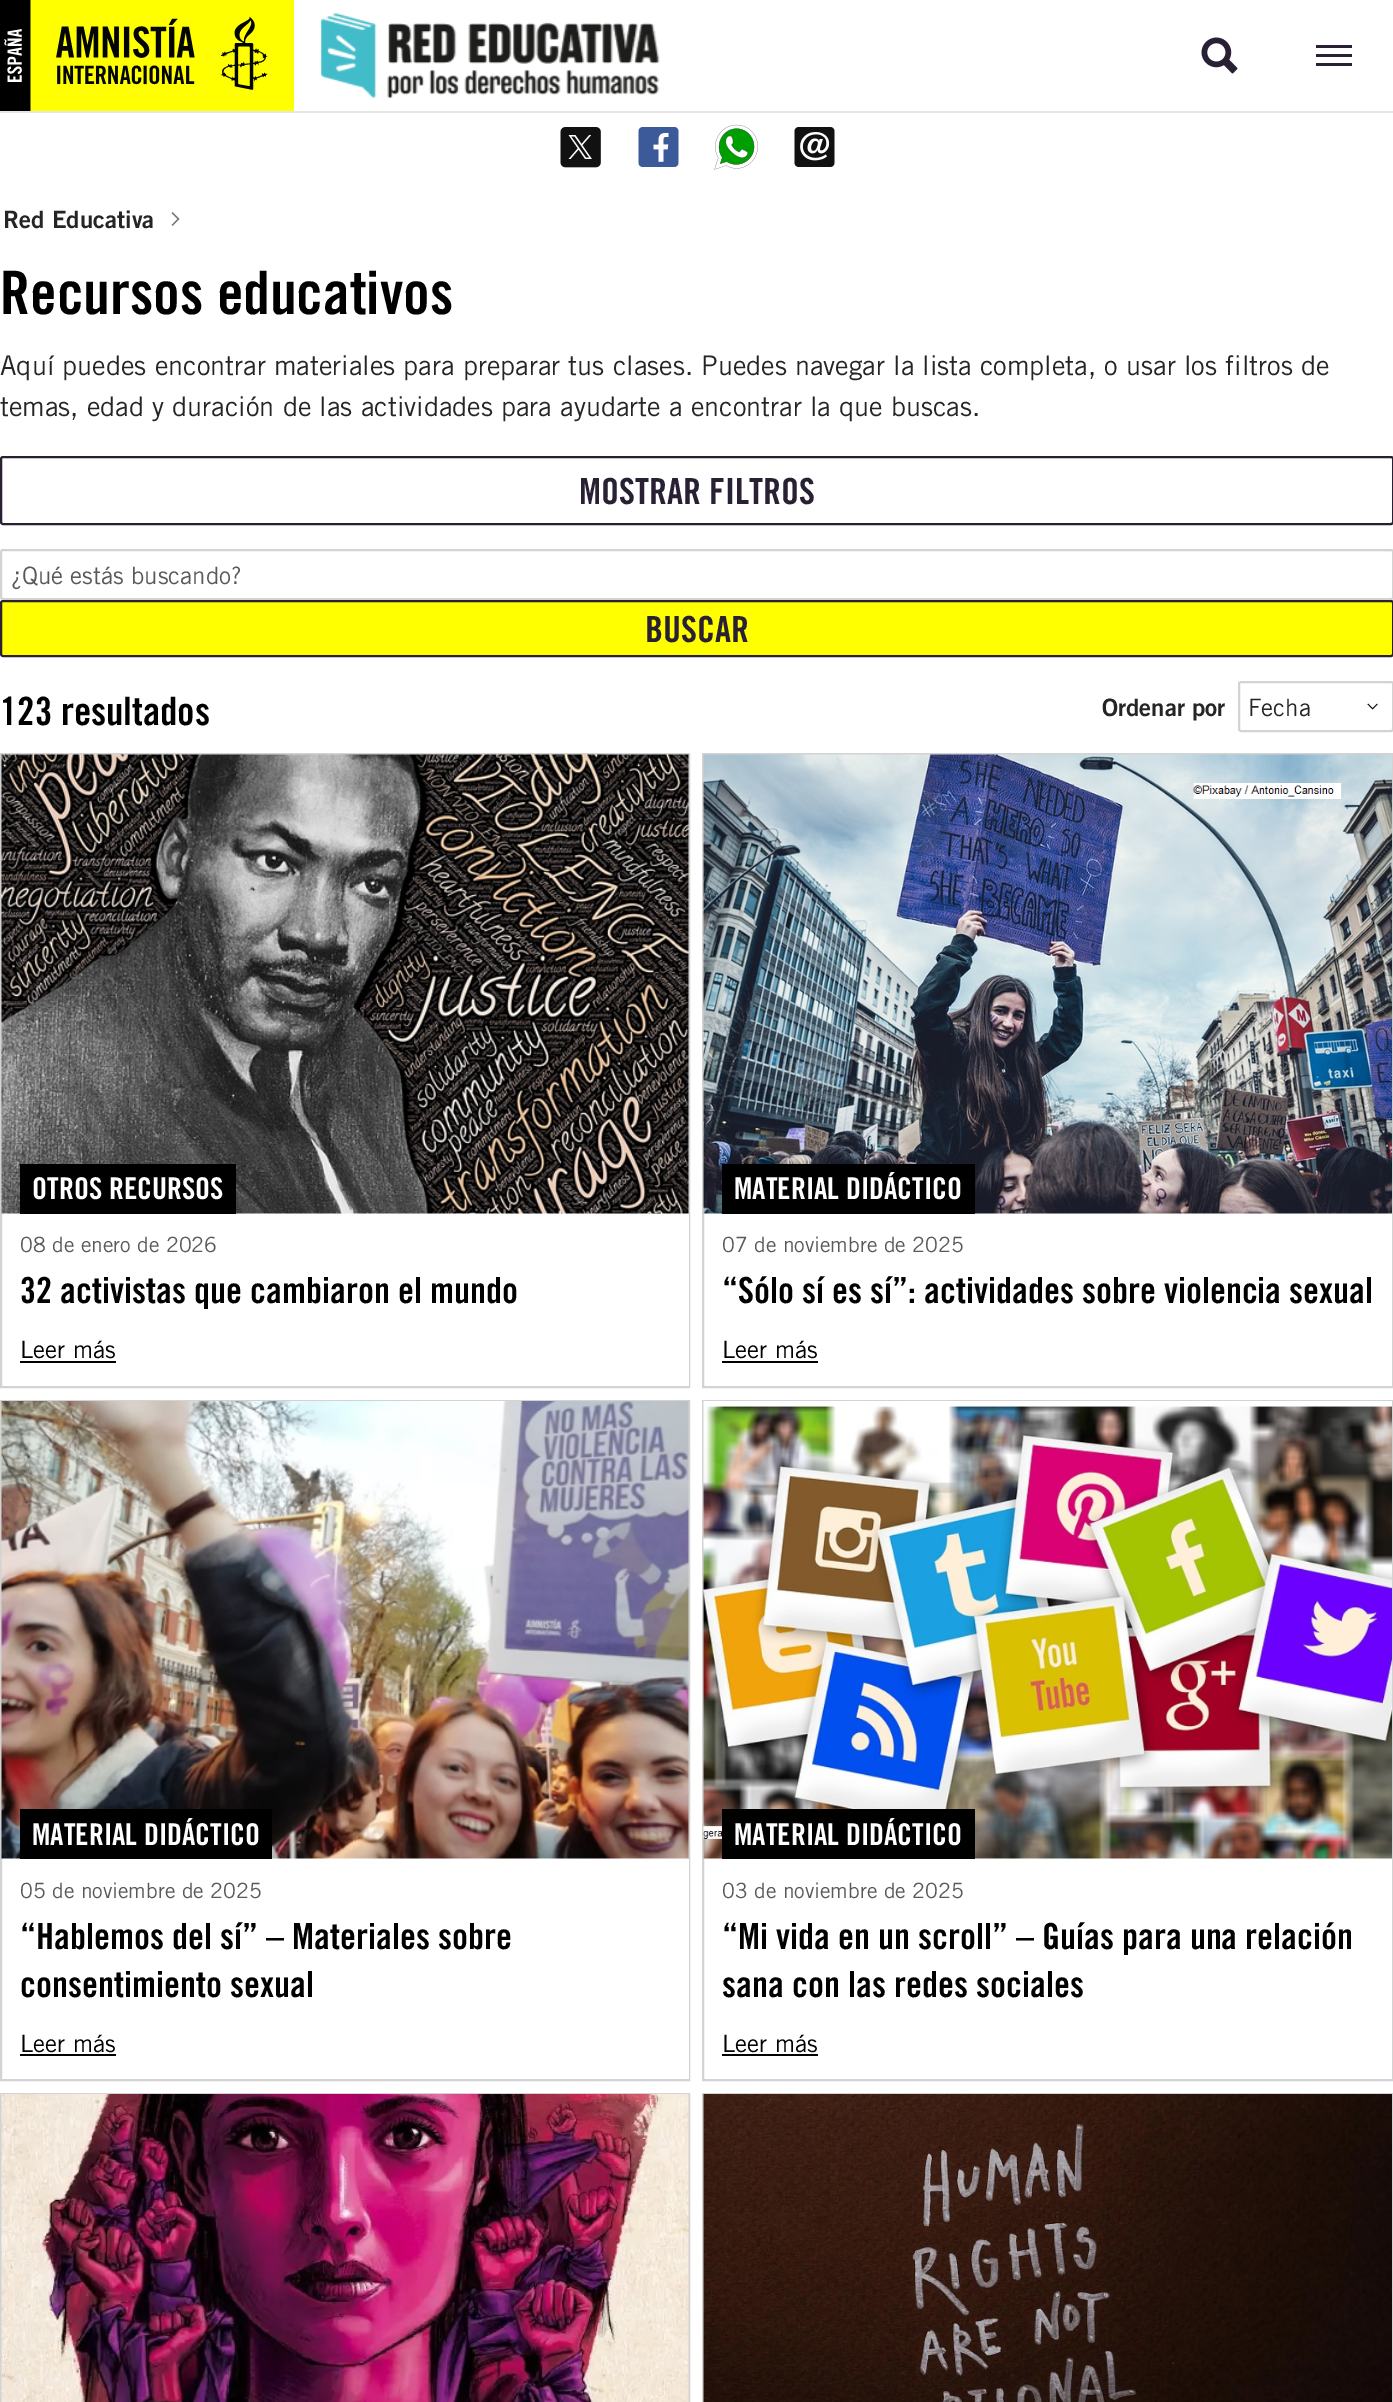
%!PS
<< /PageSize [1393 2402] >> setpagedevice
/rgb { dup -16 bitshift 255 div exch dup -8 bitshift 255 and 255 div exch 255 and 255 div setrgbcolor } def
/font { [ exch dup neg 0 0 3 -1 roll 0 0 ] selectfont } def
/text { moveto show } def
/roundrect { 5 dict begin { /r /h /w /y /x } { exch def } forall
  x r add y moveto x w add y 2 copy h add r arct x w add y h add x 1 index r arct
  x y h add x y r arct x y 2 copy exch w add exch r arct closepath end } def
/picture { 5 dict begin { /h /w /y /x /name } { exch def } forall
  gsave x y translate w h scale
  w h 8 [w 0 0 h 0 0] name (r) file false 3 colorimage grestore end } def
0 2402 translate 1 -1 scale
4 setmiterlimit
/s1 { /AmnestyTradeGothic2-Bold 24 font 16#252525 rgb } def
/s2 { /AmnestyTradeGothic-Bold 60 font 16#000000 rgb } def
/s3 { /AmnestyTradeGothic-Regular 27 font 16#252525 rgb } def
/s4 { /AmnestyTradeGothic-Bold 36 font 16#2A2034 rgb } def
/s5 { /AmnestyTradeGothic-Regular 24 font 16#595959 rgb } def
/s6 { /AmnestyTradeGothic-Bold 39 font 16#000000 rgb } def
/s7 { /AmnestyTradeGothic-Regular 24 font 16#252525 rgb } def
/s8 { /AmnestyTradeGothic-Bold 30 font 16#FFFFFF rgb } def
/s9 { /AmnestyTradeGothic-Regular 21 font 16#595959 rgb } def
/s10 { /AmnestyTradeGothic-Bold 36 font 16#000000 rgb } def
/s11 { /AmnestyTradeGothic-Regular 24 font 16#000000 rgb } def
16#FFFFFF rgb
0 0 1393 2402 rectfill
16#E6E6E6 rgb
0 111 moveto 0 113 lineto 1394 113 lineto 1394 2 lineto 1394 111 lineto closepath fill
(pic1.raw) 0 0 294 111 picture
(pic2.raw) 320 13 340 85 picture
(pic3.raw) 1201 37 37 37 picture
16#2A2034 rgb
1316 54 36 3 rectfill
1316 45 36 3 rectfill
1316 63 36 3 rectfill
(pic4.raw) 560 127 41 41 picture
(pic5.raw) 638 127 41 40 picture
(pic6.raw) 714 124 44 46 picture
(pic7.raw) 794 127 41 40 picture
s1
(Red Educativa) 3 228 text
(pic8.raw) 171 212 9 14 picture
s2
(Recursos educativos) 0 314 text
s3
(Aquí puedes encontrar materiales para preparar tus clases. Puedes navegar la lista completa, o usar los filtros de) 0 375 text
(temas, edad y duración de las actividades para ayudarte a encontrar la que buscas.) 0 416 text
16#2A2034 rgb
2 setlinewidth
1 457 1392 67 2 roundrect stroke
s4
(MOSTRAR FILTROS) 579 504 text
16#D3D3D3 rgb
1 550 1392 49 2 roundrect stroke
s5
(¿Qué estás buscando?) 11 584 text
16#FFFF00 rgb
1 601 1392 55 2 roundrect gsave fill grestore
16#2A2034 rgb
stroke
s4
(BUSCAR) 645 642 text
s6
(123 resultados) 0 725 text
s1
(Ordenar por) 1102 716 text
16#D3D3D3 rgb
1239 682 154 49 2 roundrect stroke
s7
(Fecha) 1248 716 text
(pic9.raw) 1367 703 11 7 picture
16#D3D3D3 rgb
1 754 688 633 rectstroke
(pic10.raw) 1 754 688 460 picture
16#000000 rgb
20 1164 216 50 rectfill
s8
(OTROS RECURSOS) 32 1199 text
688 1214 1 172 rectfill
s9
(08 de enero de 2026) 20 1252 text
s10
(32 activistas que cambiaron el mundo) 20 1303 text
s11
(Leer más) 20 1358 text
20 1361 96 2 rectfill
16#D3D3D3 rgb
703 754 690 633 rectstroke
(pic11.raw) 703 754 689 460 picture
16#000000 rgb
722 1164 253 50 rectfill
s8
(MATERIAL DIDÁCTICO) 734 1199 text
s9
(07 de noviembre de 2025) 722 1252 text
s10
(“Sólo sí es sí”: actividades sobre violencia sexual) 722 1303 text
s11
(Leer más) 722 1358 text
722 1361 96 2 rectfill
16#D3D3D3 rgb
1 1401 688 679 rectstroke
(pic12.raw) 1 1401 688 458 picture
16#000000 rgb
20 1809 252 50 rectfill
s8
(MATERIAL DIDÁCTICO) 32 1845 text
688 1859 1 220 rectfill
s9
(05 de noviembre de 2025) 20 1898 text
s10
(“Hablemos del sí” – Materiales sobre) 20 1949 text
(consentimiento sexual) 20 1997 text
s11
(Leer más) 20 2052 text
20 2054 96 2 rectfill
16#D3D3D3 rgb
703 1401 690 679 rectstroke
(pic13.raw) 703 1401 689 458 picture
16#000000 rgb
722 1809 253 50 rectfill
s8
(MATERIAL DIDÁCTICO) 734 1845 text
s9
(03 de noviembre de 2025) 722 1898 text
s10
(“Mi vida en un scroll” – Guías para una relación) 722 1949 text
(sana con las redes sociales) 722 1997 text
s11
(Leer más) 722 2052 text
722 2054 96 2 rectfill
16#D3D3D3 rgb
1 2094 688 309 rectstroke
(pic14.raw) 1 2094 688 308 picture
703 2094 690 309 rectstroke
(pic15.raw) 703 2094 689 308 picture
showpage
